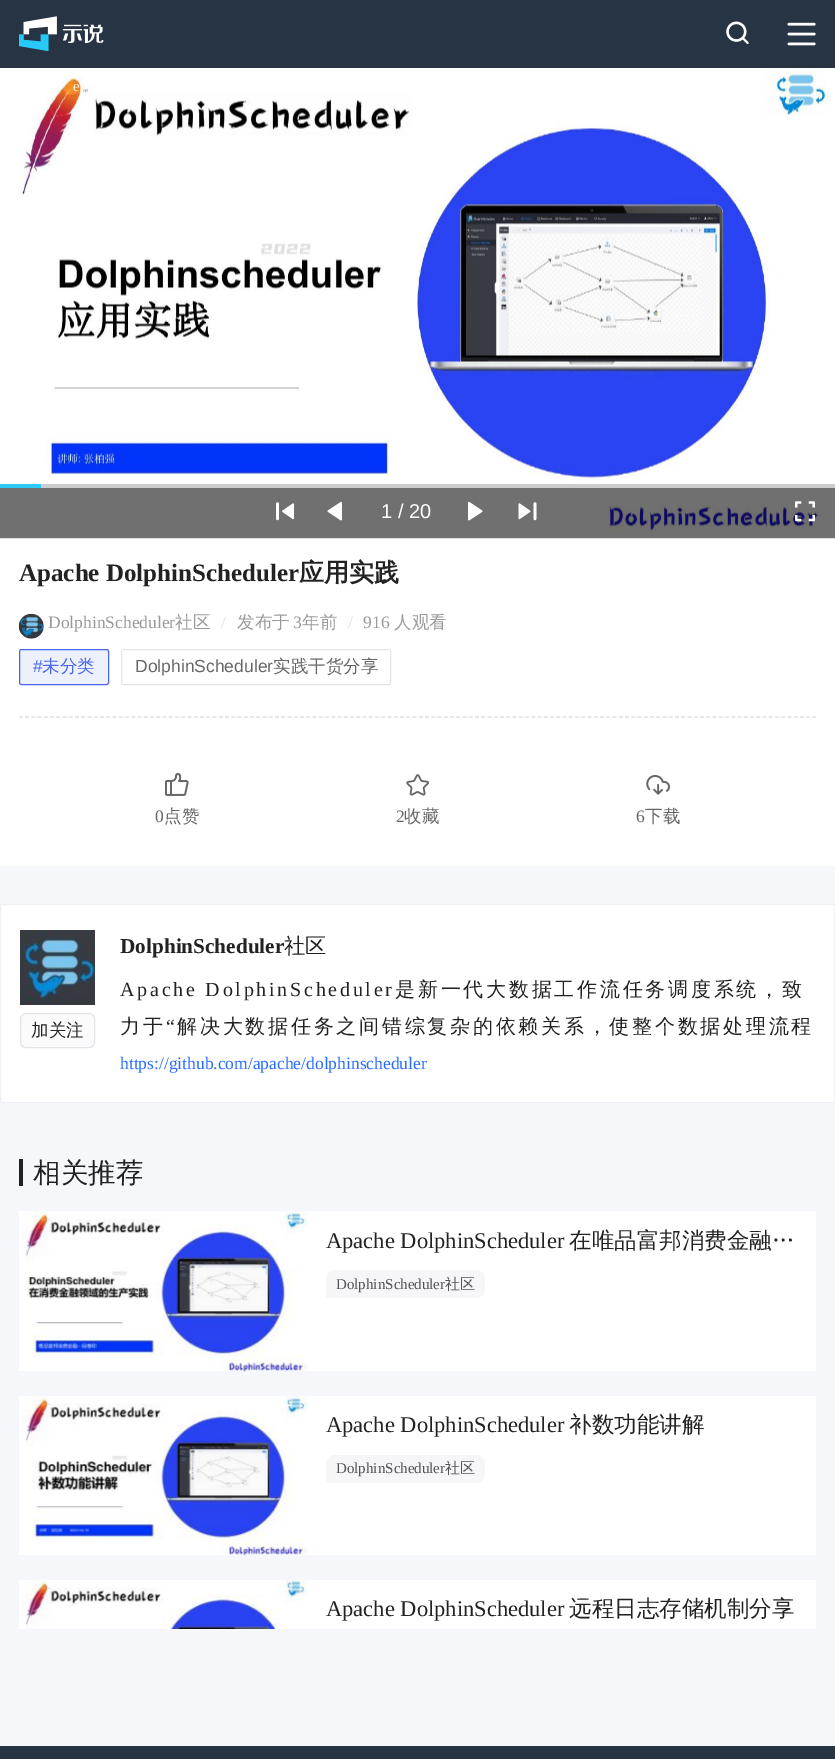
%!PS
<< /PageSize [835 1759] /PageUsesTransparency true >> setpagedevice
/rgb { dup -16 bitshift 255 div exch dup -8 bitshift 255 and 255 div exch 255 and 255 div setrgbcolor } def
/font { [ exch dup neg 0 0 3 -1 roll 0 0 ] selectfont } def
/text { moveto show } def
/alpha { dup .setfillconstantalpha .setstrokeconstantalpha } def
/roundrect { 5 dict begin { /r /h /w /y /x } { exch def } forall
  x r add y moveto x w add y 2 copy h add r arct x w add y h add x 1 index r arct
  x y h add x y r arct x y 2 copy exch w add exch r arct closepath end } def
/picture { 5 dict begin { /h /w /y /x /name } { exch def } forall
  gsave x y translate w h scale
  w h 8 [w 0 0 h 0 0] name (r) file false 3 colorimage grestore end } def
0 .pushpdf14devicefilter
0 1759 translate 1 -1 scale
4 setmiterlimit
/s1 { /LiberationSerif-Regular 15 font 16#FDF4EA rgb } def
/s2 { /LiberationSans-Regular 20 font 16#FFFFFF rgb } def
/s3 { /LiberationSerif-Bold 25 font 16#222222 rgb } def
/s4 { /WenQuanYiZenHei-Bold 25 font 16#222222 rgb } def
/s5 { /LiberationSerif-Regular 17.5 font 16#999999 rgb } def
/s6 { /WenQuanYiZenHei-Medium 17.5 font 16#999999 rgb } def
/s7 { /LiberationSerif-Regular 17.5 font 16#DBDEE2 rgb } def
/s8 { /LiberationSans-Regular 17.5 font 16#4967EE rgb } def
/s9 { /WenQuanYiZenHei-Medium 17.5 font 16#4967EE rgb } def
/s10 { /LiberationSans-Regular 17.5 font 16#666666 rgb } def
/s11 { /WenQuanYiZenHei-Medium 17.5 font 16#666666 rgb } def
/s12 { /LiberationSerif-Regular 17.5 font 16#666666 rgb } def
/s13 { /WenQuanYiZenHei-Medium 17.5 font 16#222222 rgb } def
/s14 { /LiberationSerif-Bold 21.25 font 16#222222 rgb } def
/s15 { /WenQuanYiZenHei-Medium 21.25 font 16#222222 rgb } def
/s16 { /LiberationSerif-Regular 17.5 font 16#276DFD rgb } def
/s17 { /WenQuanYiZenHei-Medium 27.5 font 16#222222 rgb } def
/s18 { /LiberationSerif-Regular 22.5 font 16#222222 rgb } def
/s19 { /WenQuanYiZenHei-Medium 22.5 font 16#222222 rgb } def
/s20 { /LiberationSerif-Regular 15 font 16#515054 rgb } def
/s21 { /WenQuanYiZenHei-Medium 15 font 16#515054 rgb } def
16#F5F7FA rgb
0 0 835 1759 rectfill
16#273444 rgb
0 0 835 68 rectfill
(pic1.raw) 19 16 85 35 picture
(pic2.raw) 726 21 23 23 picture
(pic3.raw) 787 22 29 24 picture
16#FFFFFF rgb
0 532 835 6 rectfill
(pic4.raw) 0 68 835 464 picture
s1
(e) 73 91 text
16#CCCCCC rgb
41 484 794 4 rectfill
16#2BCAF8 rgb
0 484 41 4 rectfill
0.56 alpha
16#000000 rgb
0 488 835 50 rectfill
1 alpha
(pic5.raw) 276 502 18 19 picture
(pic6.raw) 327 501 15 20 picture
s2
(1 / 20) 381 518 text
(pic7.raw) 468 501 15 20 picture
(pic8.raw) 518 502 19 19 picture
(pic9.raw) 795 501 20 21 picture
16#DBDEE2 rgb
0 538 835 1 rectfill
16#FFFFFF rgb
0 539 835 327 rectfill
s3
(Apache DolphinScheduler) 19 581 text
s4
(应用实践) 299 581 text
(pic10.raw) 18 613 26 26 picture
s5
(DolphinScheduler) 48 628 text
s6
(社区) 175 628 text
s7
(/) 221 628 text
s6
(发布于) 237 628 text
s5
(3) 293 628 text
s6
(年前) 302 628 text
s7
(/) 348 628 text
s5
(916) 363 628 text
s6
(人观看) 394 628 text
16#EDF0FD rgb
19.5 649.5 89 35 2 roundrect gsave fill grestore
16#4967EE rgb
stroke
s8
(#) 33 672 text
s9
(未分类) 42 672 text
16#E2E4EA rgb
121.5 649.5 269 35 2 roundrect stroke
s10
(DolphinScheduler) 135 672 text
s11
(实践干货分享) 273 672 text
16#DBDEE2 rgb
1.2 setlinewidth
[3.75 2.5] 0 setdash
19 717 moveto 816 717 lineto stroke
(pic11.raw) 165 773 24 23 picture
s12
(0) 155 822 text
s11
(点赞) 164 822 text
(pic12.raw) 406 774 23 22 picture
s12
(2) 396 822 text
s11
(收藏) 404 822 text
(pic13.raw) 646 775 24 20 picture
s12
(6) 636 822 text
s11
(下载) 645 822 text
16#FFFFFF rgb
0.5 904.5 moveto 834.5 904.5 lineto 834.5 1102.5 lineto 0.5 1102.5 lineto closepath gsave fill grestore
16#EFEFF4 rgb
1 setlinewidth
[] 0 setdash
stroke
(pic14.raw) 20 930 75 75 picture
16#FBFBFB rgb
20.5 1013.5 74 34 5.5 roundrect gsave fill grestore
16#E2E4EA rgb
stroke
s13
(加关注) 31 1036 text
s14
(DolphinScheduler) 120 953 text
s15
(社区) 284 953 text
/LiberationSerif-Regular 20 font
120 996 moveto 2.75 0 (Apache DolphinScheduler) ashow
/WenQuanYiZenHei-Medium 20 font
395 996 moveto 2.75 0 (是新一代大数据工作流任务调度系统，致) ashow
120 1033 moveto 2.75 0 (力于) ashow
/LiberationSerif-Regular 20 font
166 1033 moveto 2.75 0 (“) ashow
/WenQuanYiZenHei-Medium 20 font
177 1033 moveto 2.75 0 (解决大数据任务之间错综复杂的依赖关系，使整个数据处理流程) ashow
s16
(https://github.com/apache/dolphinscheduler) 120 1069 text
16#222222 rgb
19 1159 4 27 rectfill
s17
(相关推荐) 33 1182 text
16#FFFFFF rgb
19 1211 797 160 rectfill
(pic15.raw) 22 1211 286 161 picture
s18
(Apache DolphinScheduler) 326 1248 text
s19
(在唯品富邦消费金融…) 569 1248 text
16#F6F6F9 rgb
335 1270 moveto 476 1270 lineto 481 1270 485 1274 485 1279 curveto 485 1289 lineto 485 1294 481 1298 476 1298 curveto 326 1298 lineto 326 1279 lineto 326 1274 330 1270 335 1270 curveto closepath fill
s20
(DolphinScheduler) 336 1289 text
s21
(社区) 445 1289 text
16#FFFFFF rgb
19 1396 797 159 rectfill
(pic16.raw) 22 1396 286 160 picture
s18
(Apache DolphinScheduler) 326 1432 text
s19
(补数功能讲解) 569 1432 text
16#F6F6F9 rgb
335 1455 moveto 476 1455 lineto 481 1455 485 1459 485 1464 curveto 485 1474 lineto 485 1479 481 1483 476 1483 curveto 326 1483 lineto 326 1464 lineto 326 1459 330 1455 335 1455 curveto closepath fill
s20
(DolphinScheduler) 336 1473 text
s21
(社区) 445 1473 text
16#FFFFFF rgb
19 1580 797 49 rectfill
(pic17.raw) 22 1580 286 49 picture
s18
(Apache DolphinScheduler) 326 1616 text
s19
(远程日志存储机制分享) 569 1616 text
16#273444 rgb
0 1746 835 13 rectfill
.poppdf14devicefilter showpage
